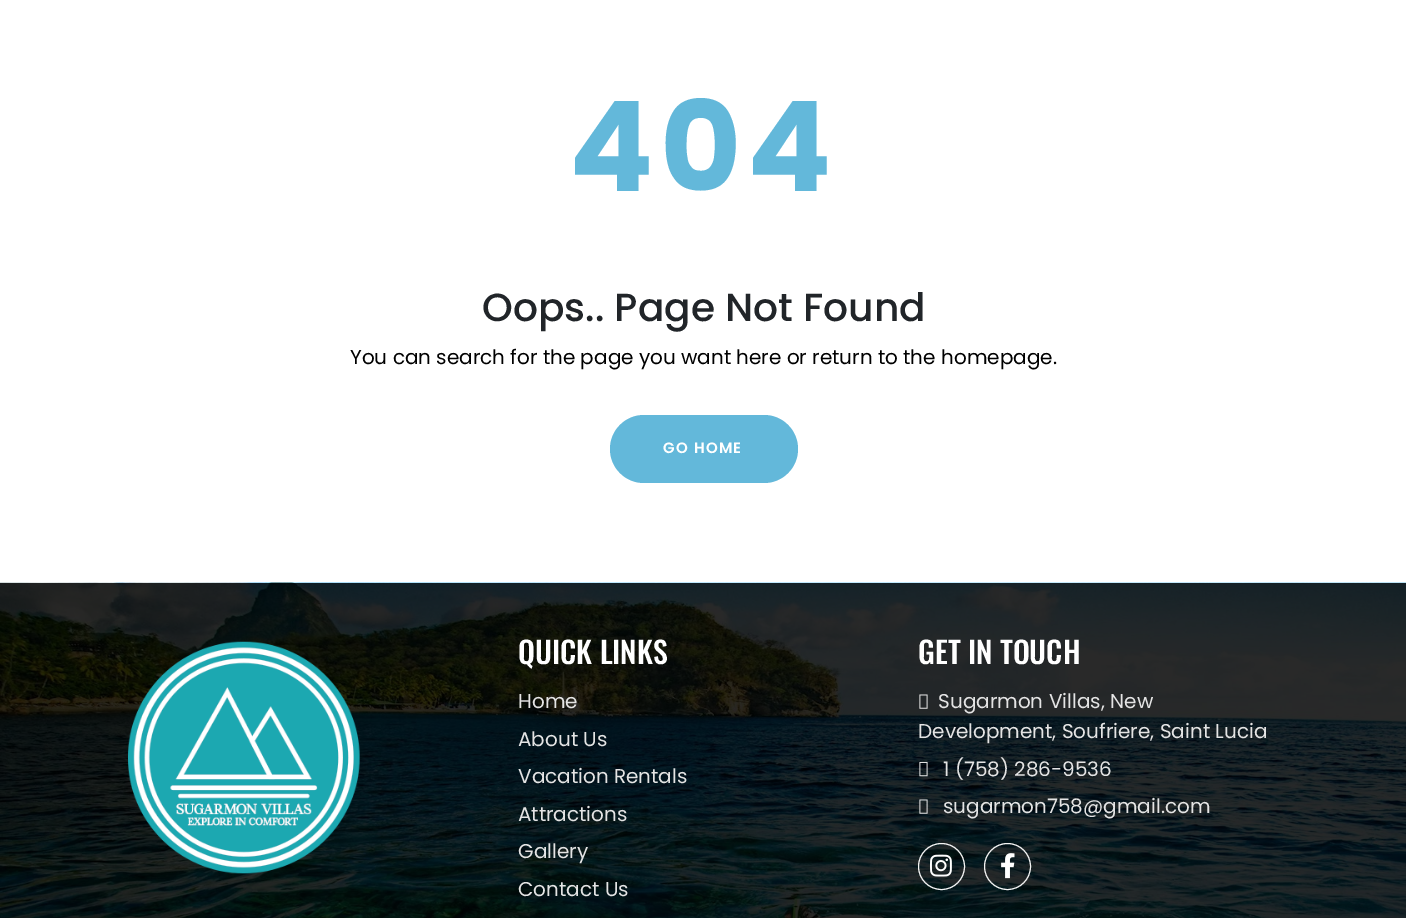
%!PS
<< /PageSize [1406 918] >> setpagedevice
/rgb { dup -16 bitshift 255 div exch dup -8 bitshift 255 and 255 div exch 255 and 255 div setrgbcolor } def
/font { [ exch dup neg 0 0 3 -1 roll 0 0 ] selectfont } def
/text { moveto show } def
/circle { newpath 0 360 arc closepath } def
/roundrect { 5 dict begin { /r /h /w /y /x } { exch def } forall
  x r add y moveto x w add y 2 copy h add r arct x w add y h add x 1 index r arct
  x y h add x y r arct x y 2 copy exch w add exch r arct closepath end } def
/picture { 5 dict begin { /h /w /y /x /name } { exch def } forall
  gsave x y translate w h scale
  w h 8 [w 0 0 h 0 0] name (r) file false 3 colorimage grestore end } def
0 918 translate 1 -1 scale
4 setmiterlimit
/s1 { /Poppins-Medium 39.2 font 16#212529 rgb } def
/s2 { /Poppins-Regular 20 font 16#000000 rgb } def
/s3 { /Oswald-Medium 30 font 16#FFFFFF rgb } def
/s4 { /Poppins-Regular 20 font 16#E4E4E4 rgb } def
16#FFFFFF rgb
0 0 1406 918 rectfill
/Poppins-Bold 125 font
16#63B8DA rgb
569 191 moveto 6 0 (404) ashow
s1
(Oops.. Page Not Found) 482 321 text
s2
(You can search for the page you want here or return to the homepage.) 350 364 text
16#63B8DA rgb
610 415 188 68 34 roundrect fill
/Poppins-SemiBold 15 font
16#FFFFFF rgb
663 453 moveto 1.25 0 (GO HOME) ashow
(pic1.raw) 0 582 1406 336 picture
(pic2.raw) 128 641 232 233 picture
s3
(QUICK LINKS) 518 664 text
s4
(Home) 518 708 text
(About Us) 518 746 text
(Vacation Rentals) 518 783 text
(Attractions) 518 821 text
(Gallery) 518 858 text
(Contact Us) 518 896 text
s3
(GET IN TOUCH) 918 664 text
(pic3.raw) 919 694 9 15 picture
s4
(Sugarmon Villas, New) 938 708 text
(Development, Soufriere, Saint Lucia) 918 738 text
(pic4.raw) 919 761 9 16 picture
(1 \(758\) 286-9536) 943 776 text
(pic5.raw) 919 799 9 15 picture
(sugarmon758@gmail.com) 943 813 text
16#F4F4F4 rgb
941.5 866.5 23 circle stroke
(pic6.raw) 930 854 22 23 picture
1007.5 866.5 23 circle stroke
(pic7.raw) 1001 853 14 26 picture
showpage
